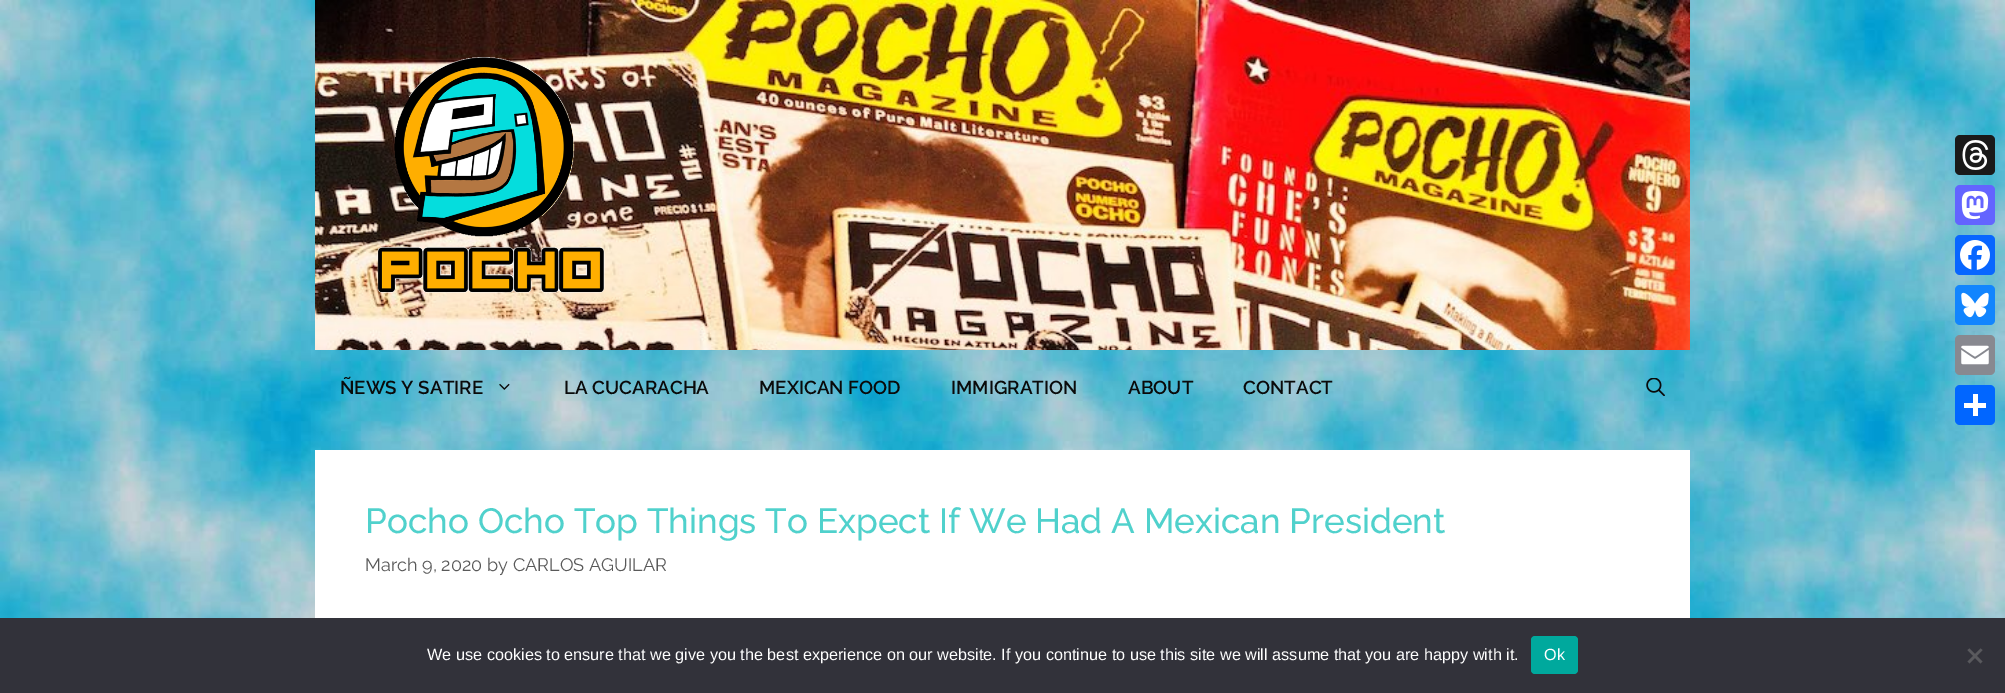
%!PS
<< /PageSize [2005 693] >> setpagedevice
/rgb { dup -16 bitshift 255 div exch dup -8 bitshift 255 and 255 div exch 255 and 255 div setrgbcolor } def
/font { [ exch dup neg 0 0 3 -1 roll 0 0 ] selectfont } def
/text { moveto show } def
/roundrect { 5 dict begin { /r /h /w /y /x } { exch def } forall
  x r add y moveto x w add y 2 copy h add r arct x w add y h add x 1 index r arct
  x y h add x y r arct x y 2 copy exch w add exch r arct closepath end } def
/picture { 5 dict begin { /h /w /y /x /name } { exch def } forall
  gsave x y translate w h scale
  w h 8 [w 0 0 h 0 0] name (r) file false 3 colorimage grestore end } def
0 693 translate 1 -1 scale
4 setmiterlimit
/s1 { /Raleway-SemiBold 18.75 font 16#0A0A0A rgb } def
/s2 { /Raleway-Medium 35 font 16#50D1CC rgb } def
/s3 { /Raleway-Regular 18.1 font 16#595959 rgb } def
/s4 { /LiberationSans-Regular 16.25 font 16#FFFFFF rgb } def
16#FFFFFF rgb
0 0 2005 693 rectfill
(pic1.raw) 0 0 2005 618 picture
(pic2.raw) 315 0 1375 350 picture
(pic3.raw) 377 57 228 236 picture
16#1A1A1A rgb
1955 135 40 40 5 roundrect fill
(pic4.raw) 1962 140 27 30 picture
16#6364FF rgb
1955 185 40 40 5 roundrect fill
(pic5.raw) 1961 190 28 29 picture
16#0866FF rgb
1955 235 40 40 5 roundrect fill
(pic6.raw) 1960 240 30 30 picture
16#1285FE rgb
1955 285 40 40 5 roundrect fill
(pic7.raw) 1961 292 28 26 picture
16#888990 rgb
1955 335 40 40 5 roundrect fill
(pic8.raw) 1961 345 28 20 picture
16#0166FF rgb
1955 385 40 40 5 roundrect fill
16#FFFFFF rgb
1973 394 5 22 rectfill
1964 403 22 5 rectfill
s1
(ÑEWS Y SATIRE) 340 394 text
(pic9.raw) 499 383 11 7 picture
(LA CUCARACHA) 564 394 text
(MEXICAN FOOD) 759 394 text
(IMMIGRATION) 951 394 text
(ABOUT) 1128 394 text
(CONTACT) 1243 394 text
(pic10.raw) 1646 378 19 18 picture
16#FFFFFF rgb
315 450 1375 168 rectfill
s2
(Pocho Ocho Top Things To Expect If We Had A Mexican President) 365 533 text
s3
(March 9, 2020 by CARLOS AGUILAR) 365 571 text
16#32323A rgb
0 618 2005 75 rectfill
s4
(We use cookies to ensure that we give you the best experience on our website. If you continue to use this site we will assume that you are happy with it.) 427 660 text
16#00A99D rgb
1531 636 47 38 4 roundrect fill
s4
(Ok) 1544 660 text
16#59595D rgb
1980.5 648.5 moveto 1982.5 650 lineto 1969.5 663.5 lineto 1967.5 661.5 lineto closepath fill
1967.5 650 moveto 1969.5 648.5 lineto 1982.5 661.5 lineto 1980.5 663.5 lineto closepath fill
showpage
